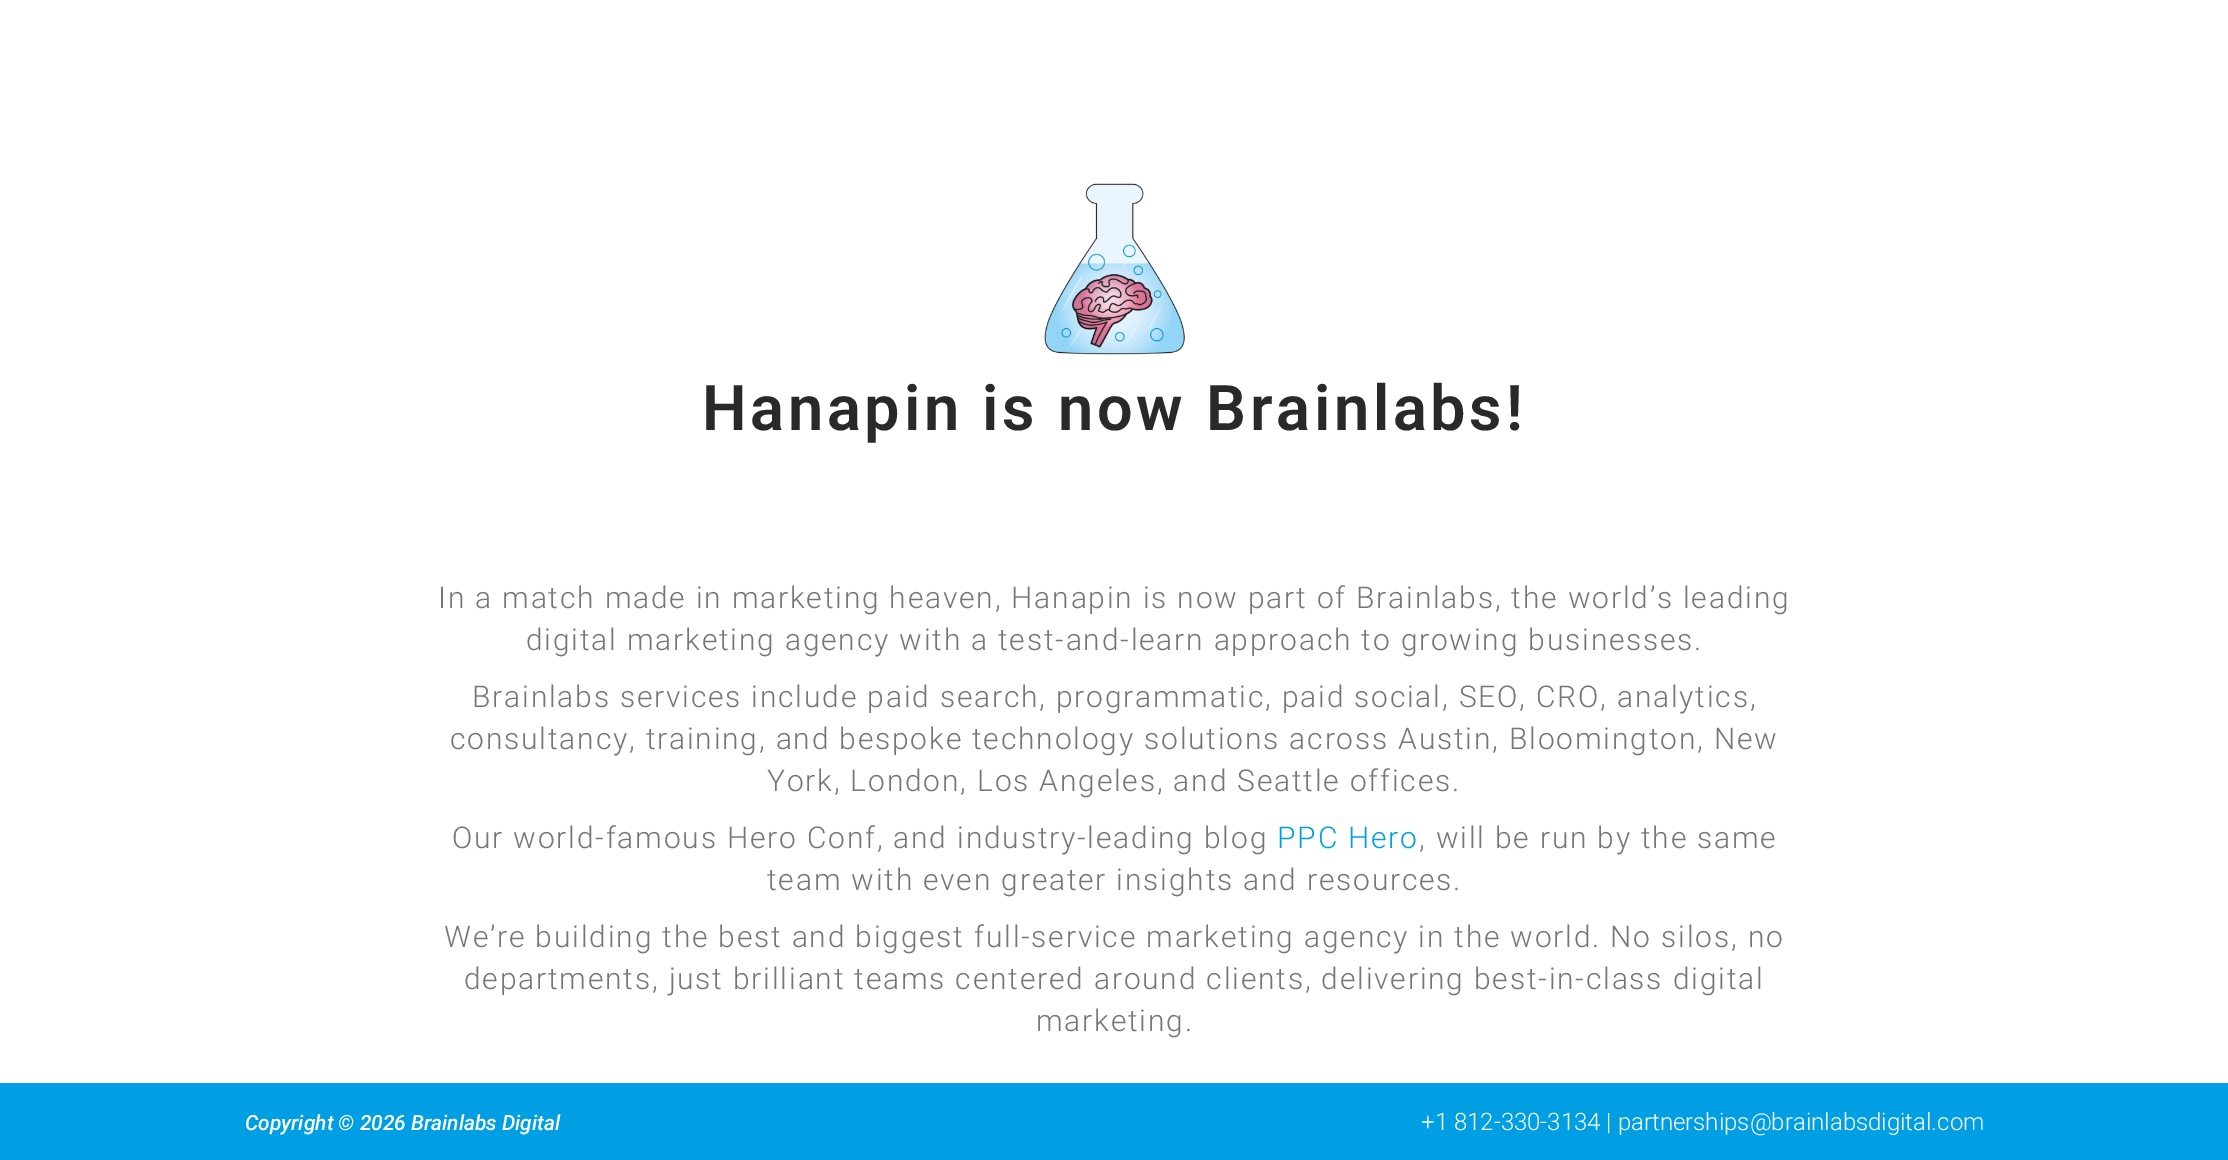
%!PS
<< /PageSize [2228 1160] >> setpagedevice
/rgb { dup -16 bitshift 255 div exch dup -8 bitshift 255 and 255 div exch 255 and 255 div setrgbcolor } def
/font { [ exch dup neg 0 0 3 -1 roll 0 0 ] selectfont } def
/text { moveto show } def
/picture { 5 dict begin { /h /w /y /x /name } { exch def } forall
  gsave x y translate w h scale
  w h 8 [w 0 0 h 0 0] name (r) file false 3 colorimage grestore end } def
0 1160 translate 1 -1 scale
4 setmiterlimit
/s1 { /Roboto-MediumItalic 21 font 16#FFFFFF rgb } def
/s2 { /Roboto-Light 24 font 16#FFFFFF rgb } def
16#FFFFFF rgb
0 0 2228 1160 rectfill
(pic1.raw) 1044 183 141 172 picture
/Roboto-SemiBold 63 font
16#292929 rgb
702 430 moveto 3.75 0 (Hanapin is now Brainlabs!) ashow
/Roboto-Light 30 font
16#767676 rgb
438 608 moveto 1.8 0 (In a match made in marketing heaven, Hanapin is now part of Brainlabs, the world’s leading) ashow
526 650 moveto 1.8 0 (digital marketing agency with a test-and-learn approach to growing businesses.) ashow
472 707 moveto 1.8 0 (Brainlabs services include paid search, programmatic, paid social, SEO, CRO, analytics,) ashow
450 749 moveto 1.8 0 (consultancy, training, and bespoke technology solutions across Austin, Bloomington, New) ashow
767 791 moveto 1.8 0 (York, London, Los Angeles, and Seattle offices.) ashow
452 848 moveto 1.8 0 (Our world-famous Hero Conf, and industry-leading blog) ashow
16#009FE3 rgb
1277 848 moveto 1.8 0 (PPC Hero) ashow
16#767676 rgb
1419 848 moveto 1.8 0 (, will be run by the same) ashow
767 890 moveto 1.8 0 (team with even greater insights and resources.) ashow
444 947 moveto 1.8 0 (We’re building the best and biggest full-service marketing agency in the world. No silos, no) ashow
464 989 moveto 1.8 0 (departments, just brilliant teams centered around clients, delivering best-in-class digital) ashow
1036 1031 moveto 1.8 0 (marketing.) ashow
16#009FE3 rgb
0 1083 2228 77 rectfill
s1
(Copyright © 2026 Brainlabs Digital) 245 1130 text
s2
(+1 812-330-3134 | partnerships@brainlabsdigital.com) 1421 1130 text
showpage
